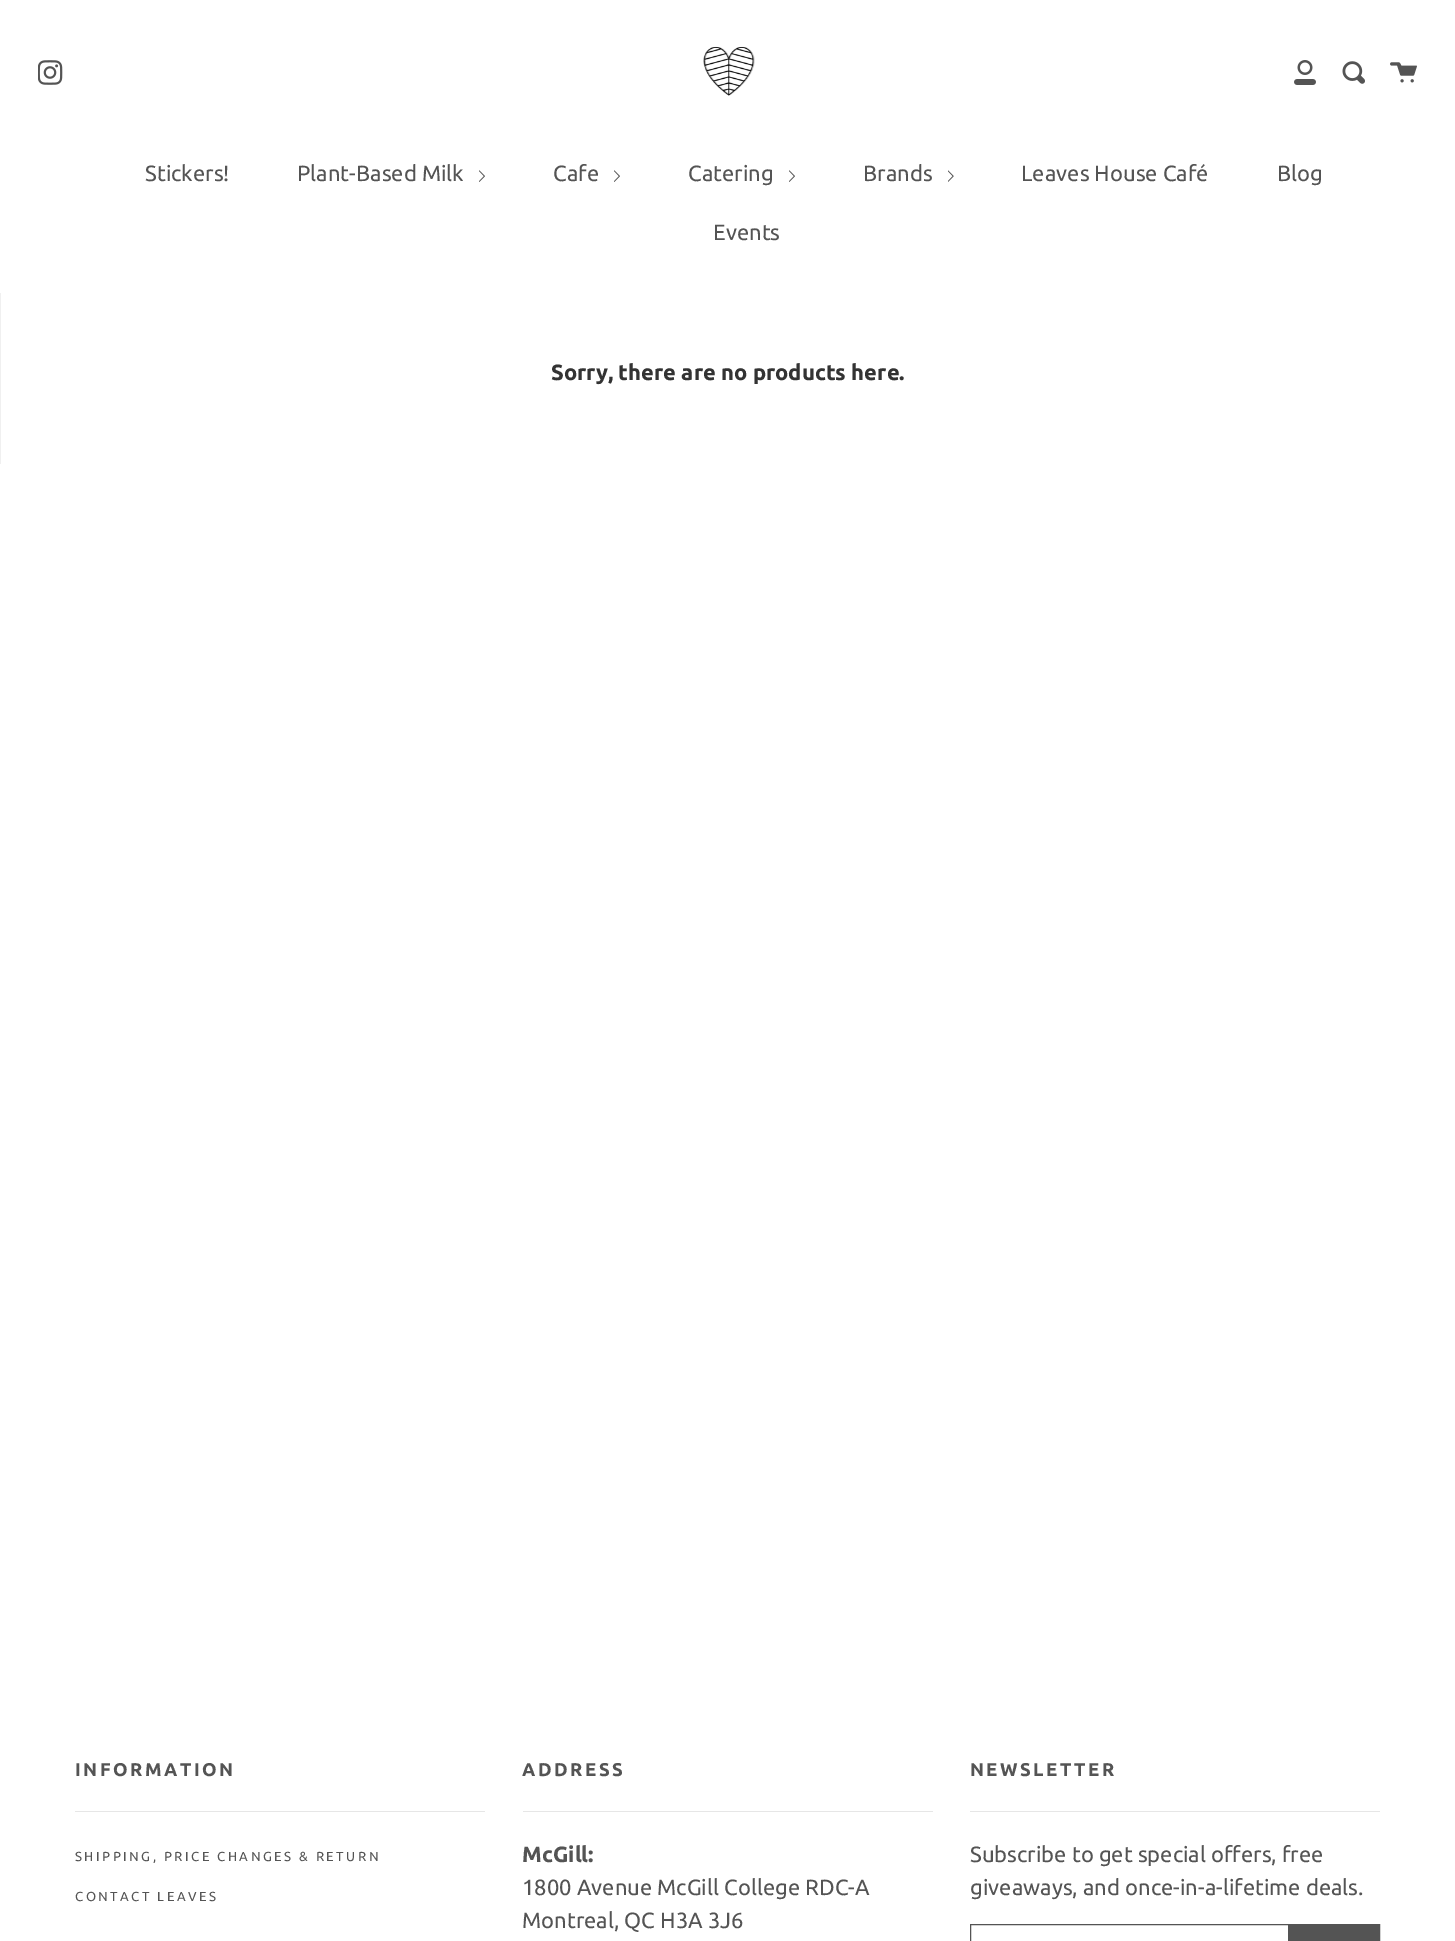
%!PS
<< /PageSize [1455 1941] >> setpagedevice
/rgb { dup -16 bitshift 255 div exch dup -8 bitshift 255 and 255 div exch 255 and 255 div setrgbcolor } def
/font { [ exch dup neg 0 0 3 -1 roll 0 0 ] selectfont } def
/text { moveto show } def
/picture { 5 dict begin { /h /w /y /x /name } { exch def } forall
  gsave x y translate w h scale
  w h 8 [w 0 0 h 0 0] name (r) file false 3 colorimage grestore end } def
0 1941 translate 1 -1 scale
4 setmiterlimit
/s1 { /Ubuntu-Regular 22 font 16#545454 rgb } def
/s2 { /Ubuntu-Bold 22 font 16#333333 rgb } def
/s3 { /Ubuntu-Bold 22 font 16#545454 rgb } def
16#FFFFFF rgb
0 0 1455 1941 rectfill
(pic1.raw) 38 60 25 25 picture
(pic2.raw) 703 46 52 50 picture
(pic3.raw) 1294 60 22 25 picture
(pic4.raw) 1342 61 23 23 picture
(pic5.raw) 1390 62 27 21 picture
s1
(Stickers!) 145 181 text
(Plant-Based Milk) 297 181 text
(pic6.raw) 479 170 6 12 picture
(Cafe) 553 181 text
(pic6.raw) 614 170 6 12 picture
(Catering) 688 181 text
(pic6.raw) 789 170 6 12 picture
(Brands) 863 181 text
(pic7.raw) 948 170 6 12 picture
(Leaves House Café) 1021 181 text
(Blog) 1277 181 text
(Events) 713 240 text
16#F0F0F0 rgb
0 293 1 171 rectfill
s2
(Sorry, there are no products here.) 551 380 text
/Ubuntu-Bold 18.5 font
16#545454 rgb
75 1776 moveto 2.5 0 (INFORMATION) ashow
16#E6E6E6 rgb
75 1811 410 1 rectfill
/Ubuntu-Regular 13.1 font
16#545454 rgb
75 1861 moveto 2.5 0 (SHIPPING, PRICE CHANGES & RETURN) ashow
75 1901 moveto 2.5 0 (CONTACT LEAVES) ashow
/Ubuntu-Bold 18.5 font
522 1776 moveto 2.5 0 (ADDRESS) ashow
16#E6E6E6 rgb
523 1811 410 1 rectfill
s3
(McGill:) 522 1862 text
s1
(1800 Avenue McGill College RDC-A) 522 1895 text
(Montreal, QC H3A 3J6) 522 1928 text
/Ubuntu-Bold 18.5 font
970 1776 moveto 2.5 0 (NEWSLETTER) ashow
16#E6E6E6 rgb
970 1811 410 1 rectfill
s1
(Subscribe to get special offers, free) 970 1862 text
(giveaways, and once-in-a-lifetime deals.) 970 1895 text
970.5 1924.5 409 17 rectstroke
1288 1925 91 16 rectfill
showpage
